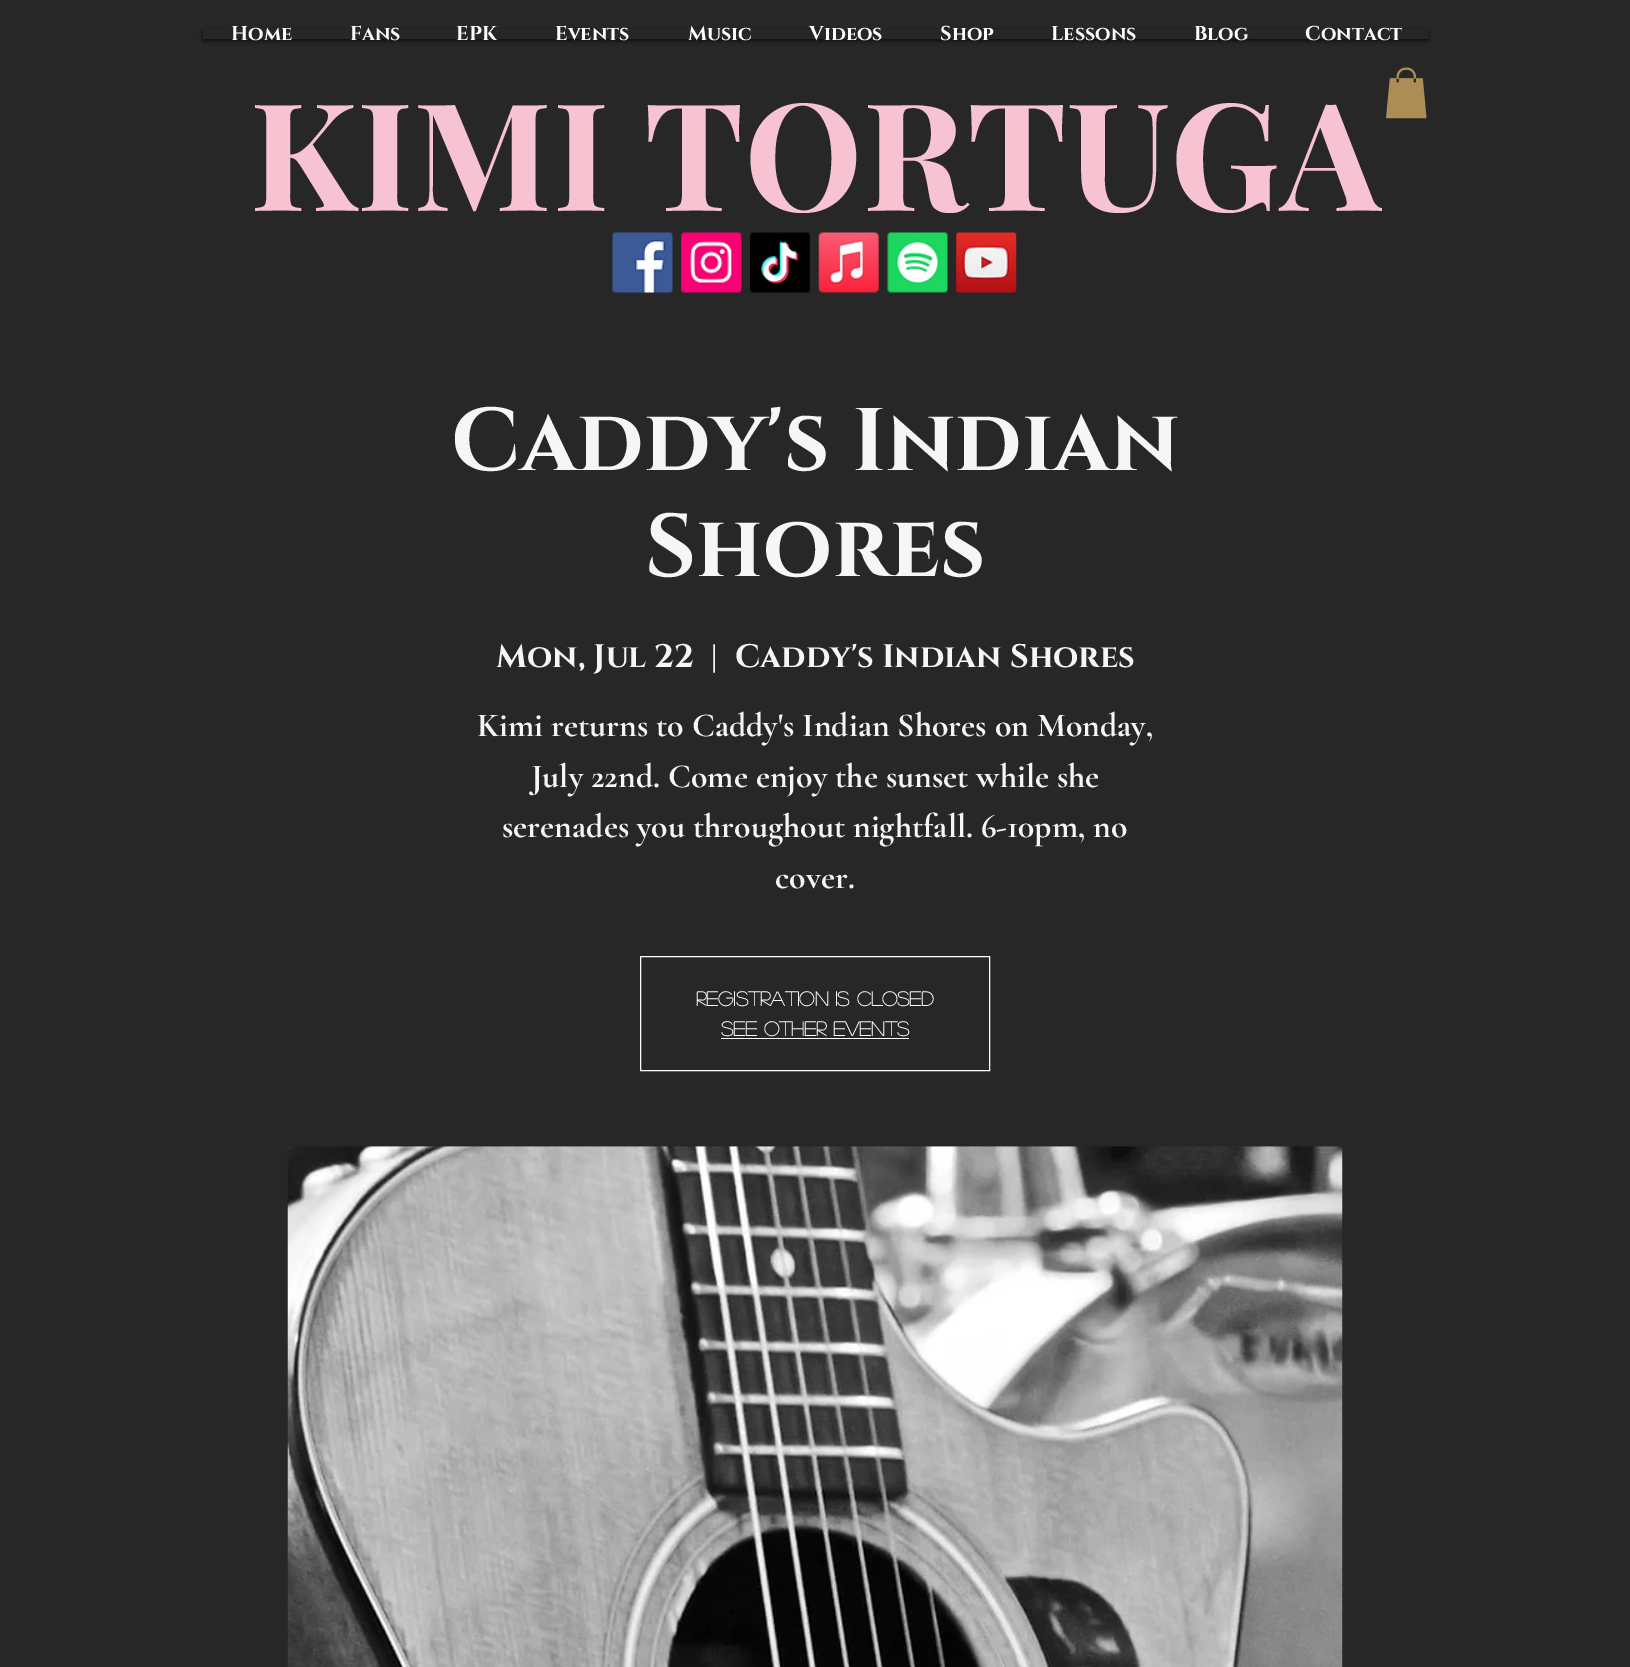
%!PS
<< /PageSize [1630 1667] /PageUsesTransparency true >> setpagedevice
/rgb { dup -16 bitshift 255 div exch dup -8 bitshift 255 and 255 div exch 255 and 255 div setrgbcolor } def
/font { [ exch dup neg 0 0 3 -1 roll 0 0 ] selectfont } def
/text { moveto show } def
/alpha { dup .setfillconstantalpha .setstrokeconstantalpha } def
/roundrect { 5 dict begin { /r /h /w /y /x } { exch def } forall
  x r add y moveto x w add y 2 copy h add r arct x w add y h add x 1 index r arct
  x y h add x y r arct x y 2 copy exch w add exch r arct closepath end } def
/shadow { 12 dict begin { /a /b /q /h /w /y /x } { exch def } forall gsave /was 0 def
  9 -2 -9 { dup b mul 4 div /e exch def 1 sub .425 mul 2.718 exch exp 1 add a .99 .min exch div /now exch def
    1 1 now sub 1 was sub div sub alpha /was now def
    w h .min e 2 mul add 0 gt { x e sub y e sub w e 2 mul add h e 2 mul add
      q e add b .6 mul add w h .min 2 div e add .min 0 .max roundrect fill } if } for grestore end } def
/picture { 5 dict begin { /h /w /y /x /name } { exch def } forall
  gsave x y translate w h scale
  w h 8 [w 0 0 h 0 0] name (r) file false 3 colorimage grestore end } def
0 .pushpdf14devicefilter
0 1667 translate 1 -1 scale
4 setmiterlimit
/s1 { /Cinzel-Bold 20 font 16#FFFFFF rgb } def
/s2 { /PlayfairDisplay-Bold 150 font 16#F7C2D2 rgb } def
/s3 { /Cinzel-Bold 88.75 font 16#F6F6F6 rgb } def
/s4 { /Cinzel-Bold 32.5 font 16#F6F6F6 rgb } def
/s5 { /CormorantGaramond-Bold 33.75 font 16#F6F6F6 rgb } def
/s6 { /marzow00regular-Bold 20 font 16#FFFFFF rgb } def
16#272727 rgb
0 0 1630 1667 rectfill
16#000000 rgb
203 31 1225 10 0 2 0.7 shadow
16#272727 rgb
203 29 1225 10 rectfill
s1
(Home) 231 40 text
(Fans) 350 40 text
(EPK) 456 40 text
(Events) 555 40 text
(Music) 688 40 text
(Videos) 809 40 text
(Shop) 940 40 text
(Lessons) 1051 40 text
(Blog) 1194 40 text
(Contact) 1305 40 text
(pic1.raw) 1386 67 41 52 picture
s2
(KIMI TORTUGA) 250 211 text
(pic2.raw) 612 232 61 61 picture
(pic3.raw) 681 232 61 61 picture
(pic4.raw) 750 232 60 61 picture
(pic5.raw) 818 232 61 61 picture
(pic6.raw) 887 232 61 61 picture
(pic7.raw) 956 232 61 61 picture
s3
(Caddy's Indian) 451 470 text
(Shores) 645 576 text
s4
(Mon, Jul 22) 496 667 text
(|) 710 667 text
(Caddy's Indian Shores) 735 667 text
s5
(Kimi returns to Caddy's Indian Shores on Monday,) 477 736 text
(July 22nd. Come enjoy the sunset while she) 531 787 text
(serenades you throughout nightfall. 6-10pm, no) 502 837 text
(cover.) 775 888 text
16#FFFFFF rgb
640.5 956.5 349 114 rectstroke
s6
(Registration is Closed) 696 1006 text
(See other events) 721 1036 text
721 1038 188 1 rectfill
(pic8.raw) 287 1146 1056 521 picture
.poppdf14devicefilter showpage
